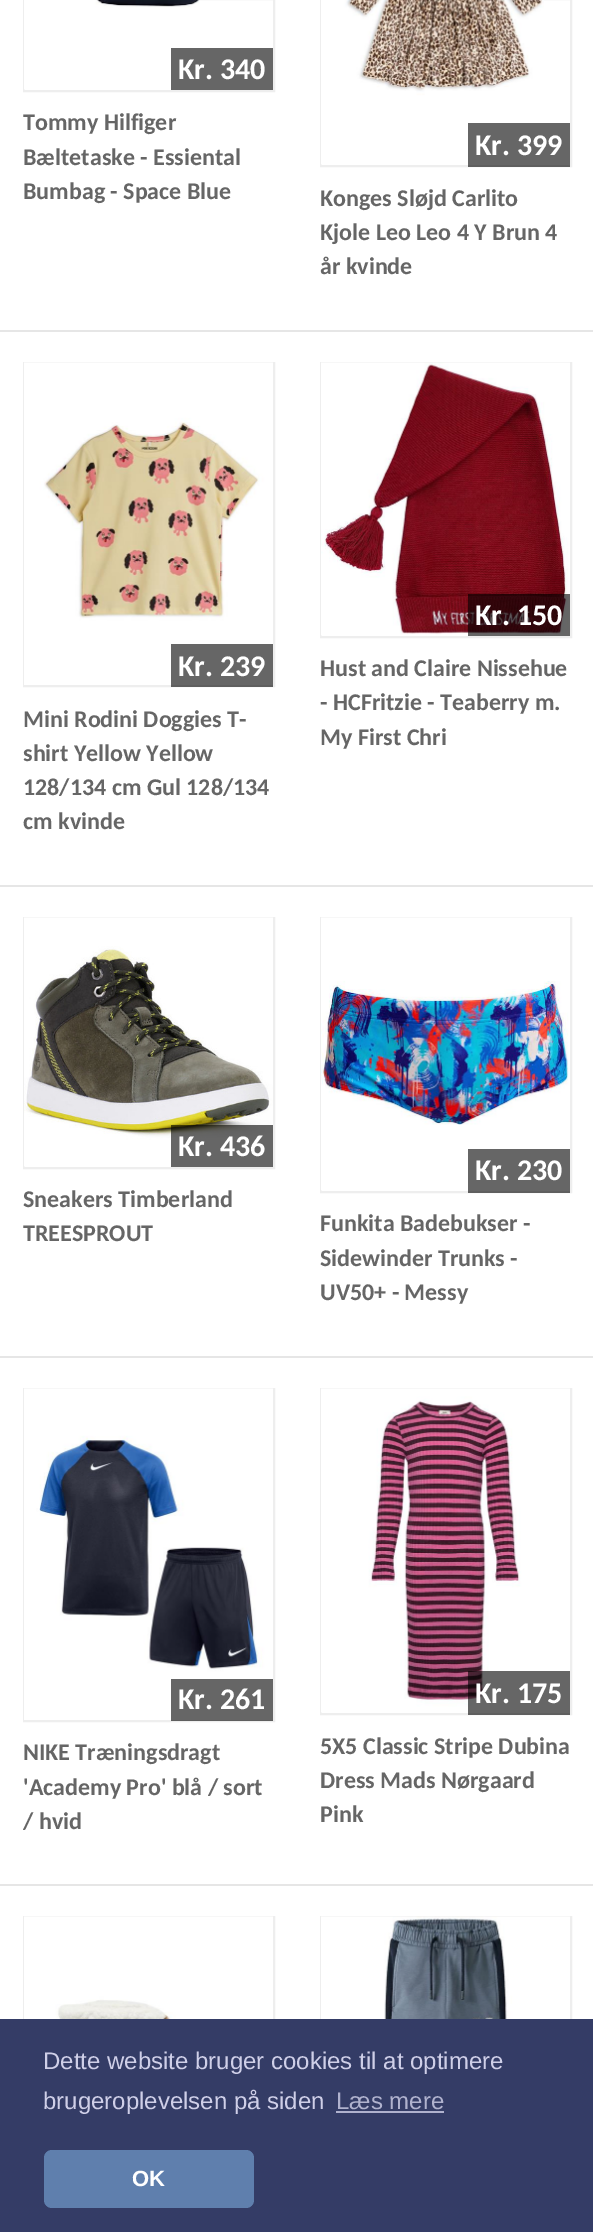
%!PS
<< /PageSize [593 2232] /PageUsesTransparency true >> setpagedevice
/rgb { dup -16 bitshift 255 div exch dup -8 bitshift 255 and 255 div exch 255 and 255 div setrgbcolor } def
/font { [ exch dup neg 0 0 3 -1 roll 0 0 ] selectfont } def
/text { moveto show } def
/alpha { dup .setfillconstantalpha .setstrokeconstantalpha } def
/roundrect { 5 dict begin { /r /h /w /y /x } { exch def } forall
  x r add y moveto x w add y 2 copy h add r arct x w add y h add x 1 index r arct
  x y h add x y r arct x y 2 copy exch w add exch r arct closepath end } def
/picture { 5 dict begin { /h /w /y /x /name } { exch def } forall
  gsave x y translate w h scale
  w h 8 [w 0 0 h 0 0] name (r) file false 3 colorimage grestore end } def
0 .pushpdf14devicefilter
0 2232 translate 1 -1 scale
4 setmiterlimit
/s1 { /Carlito-Bold 30 font 16#FFFFFF rgb } def
/s2 { /Carlito-Bold 24 font 16#666666 rgb } def
/s3 { /LiberationSans-Regular 24 font 16#CFCFE8 rgb } def
/s4 { /LiberationSans-Regular 24 font 16#B0B2CE rgb } def
/s5 { /LiberationSans-Bold 22 font 16#FFFFFF rgb } def
16#FFFFFF rgb
0 0 593 2232 rectfill
16#EEEEEE rgb
2 setlinewidth
24 -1 250 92 rectstroke
(pic1.raw) 24 0 176 90 picture
16#666666 rgb
171 48 102 42 rectfill
s1
(Kr. 340) 178 79 text
s2
(Tommy Hilfiger) 23 130 text
(Bæltetaske - Essiental) 23 165 text
(Bumbag - Space Blue) 23 199 text
16#EEEEEE rgb
321 -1 250 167 rectstroke
(pic2.raw) 321 0 223 165 picture
0.6 alpha
16#000000 rgb
468 123 102 44 rectfill
1 alpha
s1
(Kr. 399) 475 155 text
s2
(Konges Sløjd Carlito) 320 206 text
(Kjole Leo Leo 4 Y Brun 4) 320 240 text
(år kvinde) 320 274 text
16#E6E6E6 rgb
0 330 593 2 rectfill
16#EEEEEE rgb
24 363 250 323 rectstroke
(pic3.raw) 24 362 249 323 picture
0.6 alpha
16#000000 rgb
171 644 102 43 rectfill
1 alpha
s1
(Kr. 239) 178 676 text
s2
(Mini Rodini Doggies T-) 23 727 text
(shirt Yellow Yellow) 23 761 text
(128/134 cm Gul 128/134) 23 795 text
(cm kvinde) 23 829 text
16#EEEEEE rgb
321 363 250 274 rectstroke
(pic4.raw) 321 362 249 274 picture
0.6 alpha
16#000000 rgb
468 594 102 42 rectfill
1 alpha
s1
(Kr. 150) 475 625 text
s2
(Hust and Claire Nissehue) 320 676 text
(- HCFritzie - Teaberry m.) 320 710 text
(My First Chri) 320 745 text
16#E6E6E6 rgb
0 885 593 2 rectfill
16#EEEEEE rgb
24 918 250 250 rectstroke
(pic5.raw) 24 917 249 250 picture
0.6 alpha
16#000000 rgb
171 1125 102 42 rectfill
1 alpha
s1
(Kr. 436) 178 1156 text
s2
(Sneakers Timberland) 23 1207 text
(TREESPROUT) 23 1241 text
16#EEEEEE rgb
321 918 250 274 rectstroke
(pic6.raw) 321 917 249 274 picture
0.6 alpha
16#000000 rgb
468 1149 102 44 rectfill
1 alpha
s1
(Kr. 230) 475 1180 text
s2
(Funkita Badebukser -) 320 1231 text
(Sidewinder Trunks -) 320 1266 text
(UV50+ - Messy) 320 1300 text
16#E6E6E6 rgb
0 1356 593 2 rectfill
16#EEEEEE rgb
24 1389 250 332 rectstroke
(pic7.raw) 24 1388 249 332 picture
0.6 alpha
16#000000 rgb
171 1679 102 42 rectfill
1 alpha
s1
(Kr. 261) 178 1709 text
s2
(NIKE Træningsdragt) 23 1760 text
('Academy Pro' blå / sort) 23 1795 text
(/ hvid) 23 1829 text
16#EEEEEE rgb
321 1389 250 325 rectstroke
(pic8.raw) 321 1388 249 325 picture
0.6 alpha
16#000000 rgb
468 1671 102 44 rectfill
1 alpha
s1
(Kr. 175) 475 1703 text
s2
(5X5 Classic Stripe Dubina) 320 1754 text
(Dress Mads Nørgaard) 320 1788 text
(Pink) 320 1822 text
16#E6E6E6 rgb
0 1884 593 2 rectfill
16#EEEEEE rgb
24 1917 250 250 rectstroke
(pic9.raw) 24 1916 249 103 picture
321 1917 250 274 rectstroke
(pic10.raw) 321 1916 249 103 picture
16#343C66 rgb
0 2019 593 213 rectfill
s3
(Dette website bruger cookies til at optimere) 43 2069 text
(brugeroplevelsen på siden) 43 2109 text
s4
(Læs mere) 336 2109 text
336 2111 108 2 rectfill
16#5F7FAD rgb
44 2150 210 58 8 roundrect fill
s5
(OK) 132 2186 text
.poppdf14devicefilter showpage
